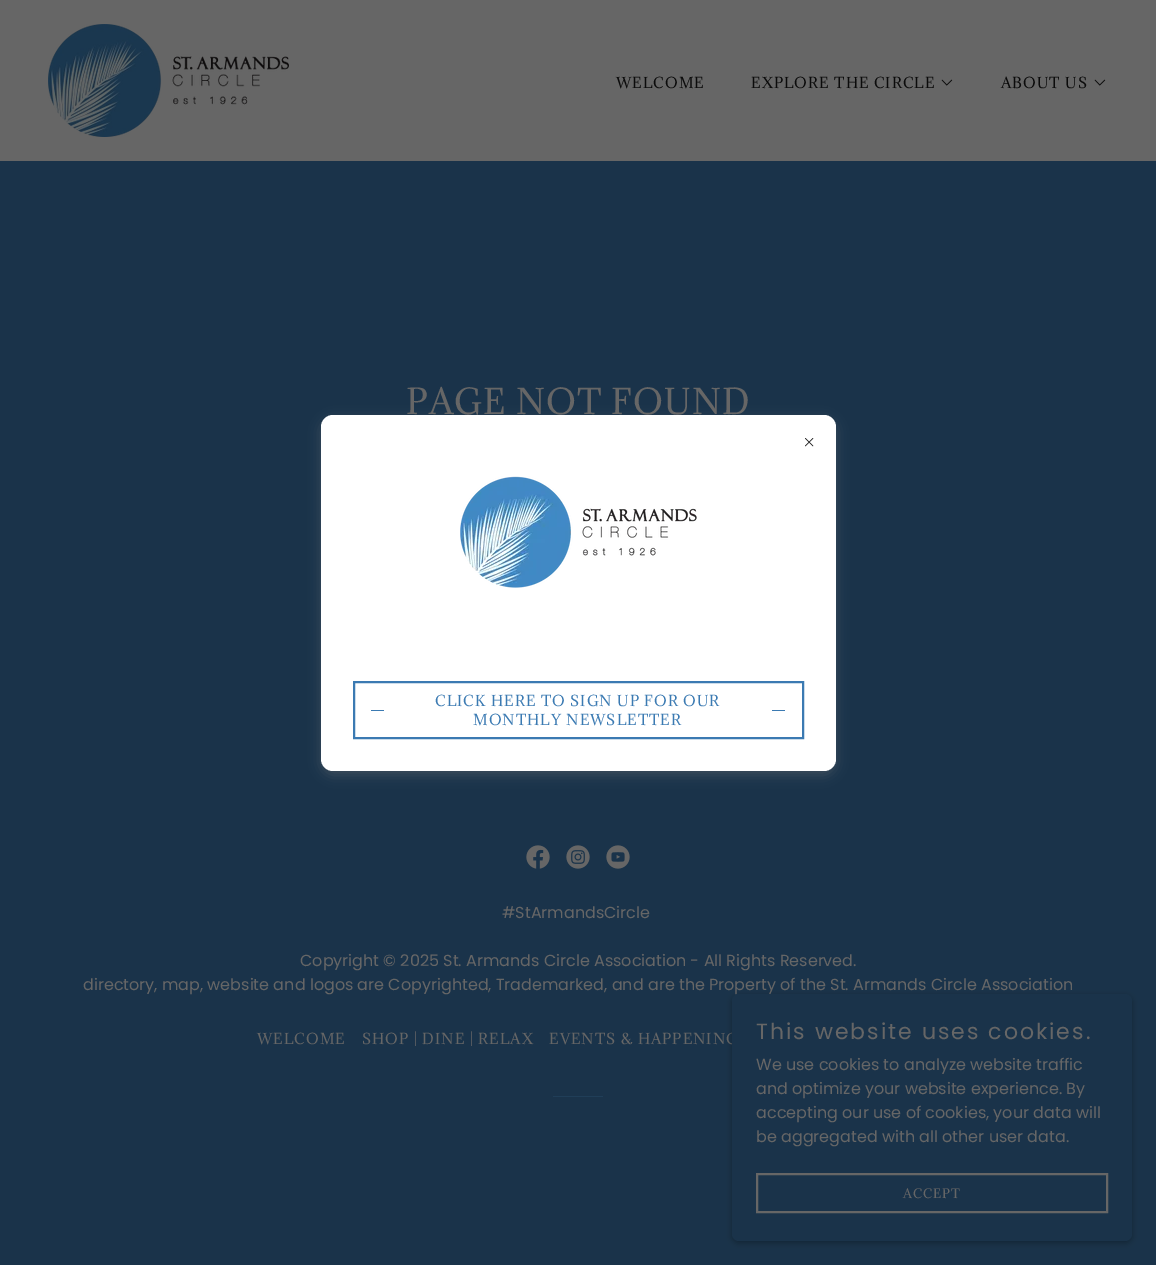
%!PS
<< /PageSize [1156 1265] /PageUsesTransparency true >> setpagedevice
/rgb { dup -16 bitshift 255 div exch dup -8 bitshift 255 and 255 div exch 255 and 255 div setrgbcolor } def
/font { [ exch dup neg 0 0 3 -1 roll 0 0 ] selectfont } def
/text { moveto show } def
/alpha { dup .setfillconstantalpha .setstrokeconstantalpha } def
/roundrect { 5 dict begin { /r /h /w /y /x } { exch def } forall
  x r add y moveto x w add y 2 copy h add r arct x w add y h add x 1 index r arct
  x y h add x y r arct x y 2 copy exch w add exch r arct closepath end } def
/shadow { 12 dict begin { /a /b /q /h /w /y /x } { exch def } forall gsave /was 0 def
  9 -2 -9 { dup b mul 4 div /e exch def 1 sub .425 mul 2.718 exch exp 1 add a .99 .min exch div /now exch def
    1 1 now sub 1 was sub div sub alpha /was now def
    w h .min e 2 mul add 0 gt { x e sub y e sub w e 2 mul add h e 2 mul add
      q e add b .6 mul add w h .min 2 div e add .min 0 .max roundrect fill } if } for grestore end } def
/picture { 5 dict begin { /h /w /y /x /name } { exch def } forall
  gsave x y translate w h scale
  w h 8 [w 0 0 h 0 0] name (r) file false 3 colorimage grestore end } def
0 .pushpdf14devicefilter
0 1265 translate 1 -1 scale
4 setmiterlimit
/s1 { /Poppins-Regular 16 font 16#666666 rgb } def
16#1A334A rgb
0 0 1156 1265 rectfill
16#666666 rgb
0 0 1156 161 rectfill
(pic1.raw) 48 24 241 113 picture
/Adamina-Regular 14 font
16#0B0B0B rgb
616 88 moveto 1 0 (WELCOME) ashow
751 88 moveto 1 0 (EXPLORE THE CIRCLE) ashow
(pic2.raw) 941 79 12 7 picture
1001 88 moveto 1 0 (ABOUT US) ashow
(pic2.raw) 1094 79 12 7 picture
/Adamina-Regular 33 font
16#666666 rgb
406 414 moveto 1 0 (PAGE NOT FOUND) ashow
16#757575 rgb
321 419 515 356 12 6 0.4 shadow
16#FFFFFF rgb
321 415 515 356 12 roundrect fill
(pic3.raw) 805 438 9 9 picture
(pic4.raw) 460 476 237 112 picture
16#3B7AB2 rgb
2 setlinewidth
354 682 449 56 rectstroke
/Adamina-Regular 14 font
435 706 moveto 1 0 (CLICK HERE TO SIGN UP FOR OUR) ashow
371 710 13 1 rectfill
772 710 13 1 rectfill
473 725 moveto 1 0 (MONTHLY NEWSLETTER) ashow
(pic5.raw) 526 845 24 24 picture
(pic6.raw) 566 845 24 24 picture
(pic7.raw) 606 845 24 24 picture
s1
(#StArmandsCircle) 502 918 text
(Copyright © 2025 St. Armands Circle Association - All Rights Reserved.) 300 966 text
(directory, map, website and logos are Copyrighted, Trademarked, and are the Property of the St. Armands Circle Association) 83 990 text
/Adamina-Regular 14 font
257 1044 moveto 1 0 (WELCOME) ashow
362 1044 moveto 1 0 (SHOP | DINE | RELAX) ashow
549 1044 moveto 1 0 (EVENTS & HAPPENING) ashow
16#203E58 rgb
553 1096 50 1 rectfill
16#000000 rgb
732 996 400 247 7 3 0.3 shadow
16#1A334A rgb
732 994 400 247 7 roundrect fill
/Poppins-Regular 22 font
16#666666 rgb
756 1039 moveto 2 0 (This website uses cookies.) ashow
s1
(We use cookies to analyze website traffic) 756 1070 text
(and optimize your website experience. By) 756 1094 text
(accepting our use of cookies, your data will) 756 1118 text
(be aggregated with all other user data.) 756 1142 text
757 1174 350 38 rectstroke
/Adamina-Regular 12 font
903 1198 moveto 1 0 (ACCEPT) ashow
.poppdf14devicefilter showpage
